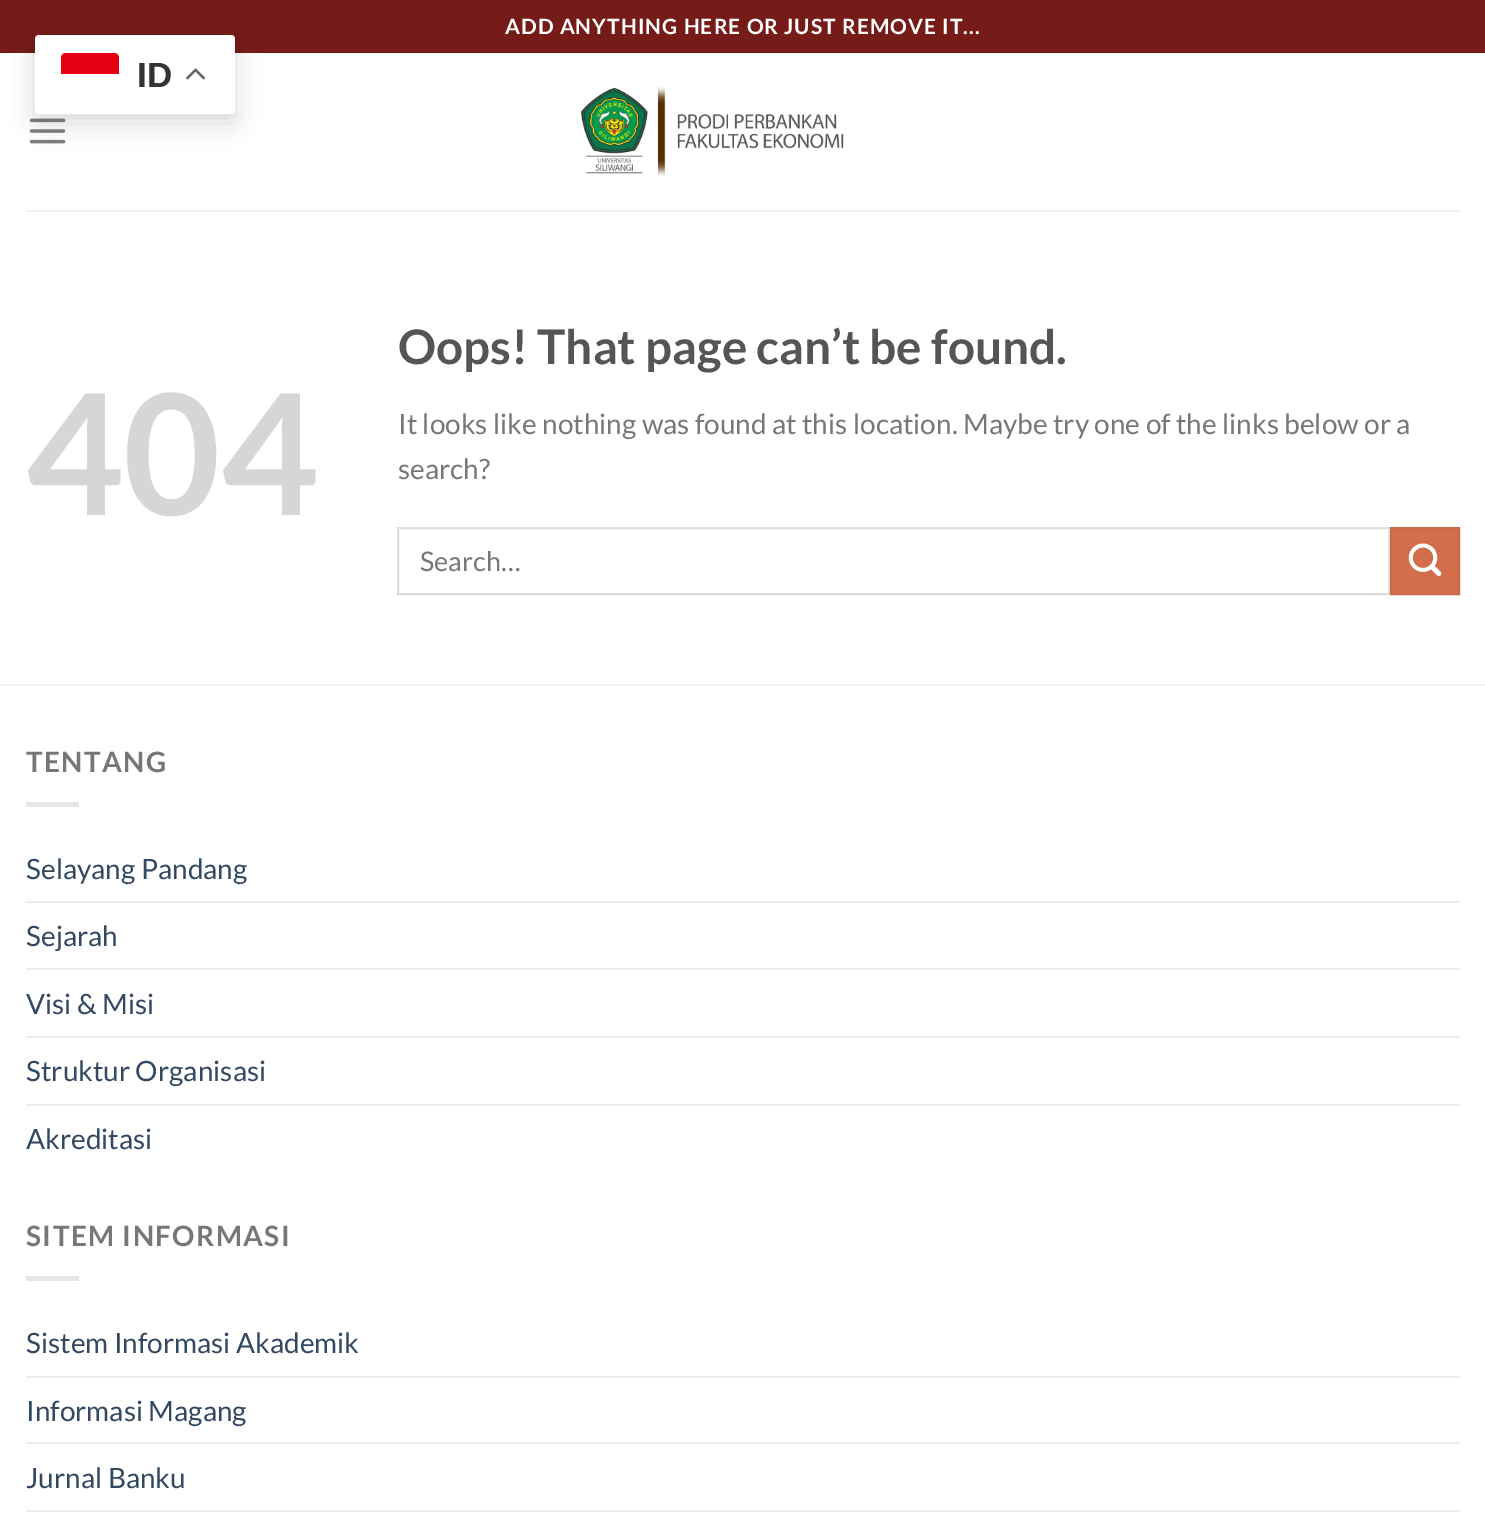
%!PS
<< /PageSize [1485 1520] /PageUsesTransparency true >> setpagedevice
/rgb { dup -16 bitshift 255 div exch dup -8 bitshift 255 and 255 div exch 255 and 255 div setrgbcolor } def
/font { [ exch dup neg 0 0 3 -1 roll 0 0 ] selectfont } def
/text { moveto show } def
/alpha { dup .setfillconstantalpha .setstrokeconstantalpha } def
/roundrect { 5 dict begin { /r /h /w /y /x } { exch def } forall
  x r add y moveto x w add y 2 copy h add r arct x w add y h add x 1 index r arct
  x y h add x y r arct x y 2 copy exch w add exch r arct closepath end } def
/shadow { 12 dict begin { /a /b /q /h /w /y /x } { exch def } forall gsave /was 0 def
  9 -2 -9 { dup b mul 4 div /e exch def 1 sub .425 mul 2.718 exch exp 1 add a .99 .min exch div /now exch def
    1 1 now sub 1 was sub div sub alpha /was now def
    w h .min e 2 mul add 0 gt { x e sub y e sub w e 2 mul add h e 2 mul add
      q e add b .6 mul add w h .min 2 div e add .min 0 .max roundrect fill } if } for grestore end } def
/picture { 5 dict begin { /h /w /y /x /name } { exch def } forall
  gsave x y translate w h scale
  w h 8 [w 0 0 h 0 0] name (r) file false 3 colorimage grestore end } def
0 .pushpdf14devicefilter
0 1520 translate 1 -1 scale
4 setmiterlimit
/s1 { /Lato-Bold 168 font 16#D6D6D6 rgb } def
/s2 { /Lato-Bold 47.6 font 16#555555 rgb } def
/s3 { /Lato-Regular 28 font 16#777777 rgb } def
/s4 { /Lato-Regular 27 font 16#777777 rgb } def
/s5 { /Lato-Regular 28 font 16#334862 rgb } def
/s6 { /LiberationSans-Bold 35 font 16#333333 rgb } def
16#FFFFFF rgb
0 0 1485 1520 rectfill
16#751B18 rgb
0 0 1485 53 rectfill
/Lato-Bold 21 font
16#FFFFFF rgb
505 34 moveto 1.05 0 (ADD ANYTHING HERE OR JUST REMOVE IT...) ashow
(pic1.raw) 29 118 37 26 picture
(pic2.raw) 580 86 264 91 picture
16#F1F1F1 rgb
26 210 1434 2 rectfill
s1
(404) 26 515 text
s2
(Oops! That page can’t be found.) 398 364 text
s3
(It looks like nothing was found at this location. Maybe try one of the links below or a) 398 434 text
(search?) 398 479 text
16#DDDDDD rgb
2 setlinewidth
398 528 991 66 rectstroke
s4
(Search…) 420 571 text
16#D26E4B rgb
1391 528 moveto 1459 528 lineto 1459 594 lineto 1391 594 lineto closepath gsave fill grestore
16#C86947 rgb
stroke
(pic3.raw) 1408 543 34 33 picture
16#F2F2F2 rgb
0 684 1485 2 rectfill
/Lato-Bold 28 font
16#777777 rgb
26 772 moveto 1.4 0 (TENTANG) ashow
16#E6E6E6 rgb
26 802 53 5 rectfill
s5
(Selayang Pandang) 26 879 text
16#ECECEC rgb
26 901 1434 2 rectfill
s5
(Sejarah) 26 946 text
16#ECECEC rgb
26 968 1434 2 rectfill
s5
(Visi & Misi) 26 1014 text
16#ECECEC rgb
26 1036 1434 2 rectfill
s5
(Struktur Organisasi) 26 1081 text
16#ECECEC rgb
26 1104 1434 2 rectfill
s5
(Akreditasi) 26 1149 text
/Lato-Bold 28 font
16#777777 rgb
26 1246 moveto 1.4 0 (SITEM INFORMASI) ashow
16#E6E6E6 rgb
26 1276 53 5 rectfill
s5
(Sistem Informasi Akademik) 26 1353 text
16#ECECEC rgb
26 1376 1434 2 rectfill
s5
(Informasi Magang) 26 1421 text
16#ECECEC rgb
26 1442 1434 2 rectfill
s5
(Jurnal Banku) 26 1488 text
16#ECECEC rgb
26 1510 1434 2 rectfill
16#000000 rgb
35 44 200 79 4 13 0.15 shadow
16#FFFFFF rgb
35 35 200 79 4 roundrect fill
16#E70011 rgb
66 53 moveto 114 53 lineto 117 53 119 55 119 58 curveto 119 75 lineto 61 75 lineto 61 58 lineto 61 55 63 53 66 53 curveto closepath fill
16#FFFFFF rgb
61 74 moveto 119 74 lineto 119 91 lineto 119 94 117 96 114 96 curveto 66 96 lineto 63 96 61 94 61 91 curveto closepath fill
s6
(ID) 137 87 text
(pic4.raw) 186 68 19 12 picture
.poppdf14devicefilter showpage
